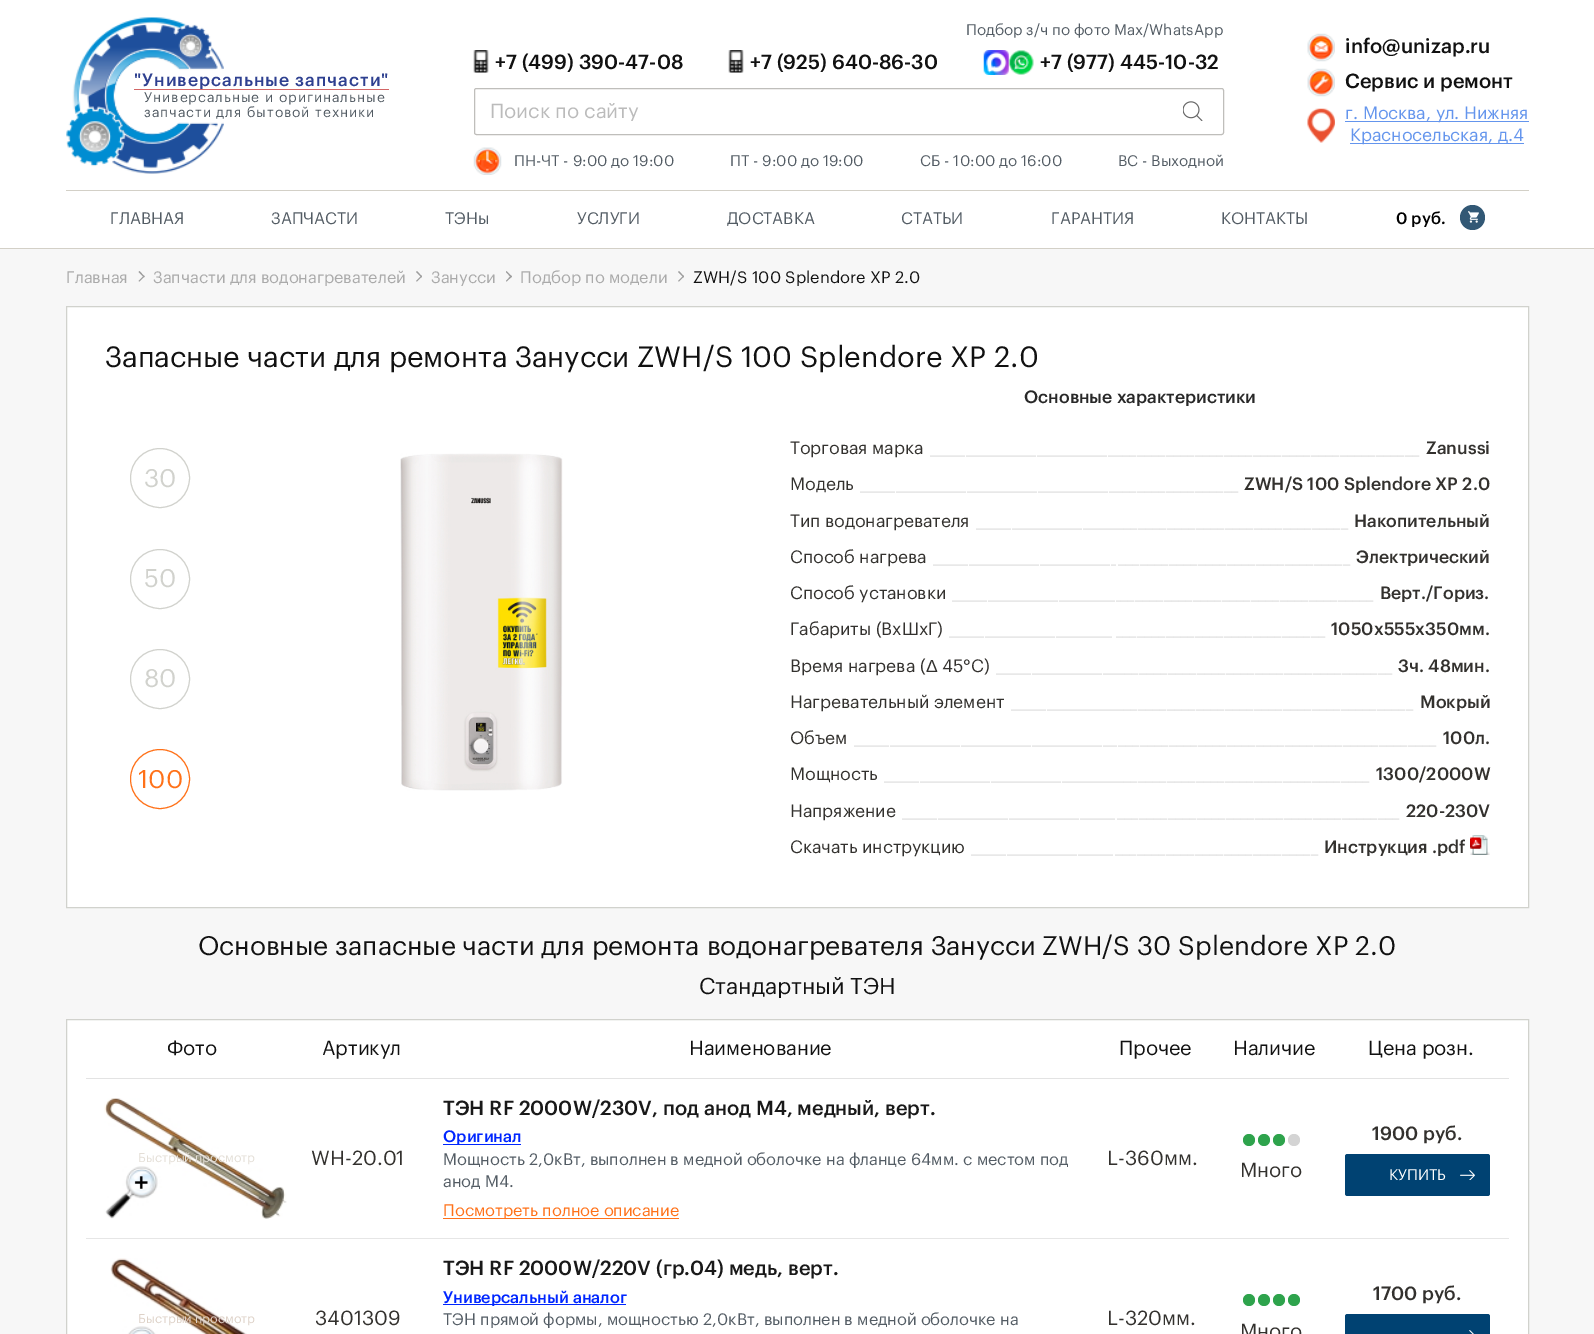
%!PS
<< /PageSize [1594 1334] >> setpagedevice
/rgb { dup -16 bitshift 255 div exch dup -8 bitshift 255 and 255 div exch 255 and 255 div setrgbcolor } def
/font { [ exch dup neg 0 0 3 -1 roll 0 0 ] selectfont } def
/text { moveto show } def
/circle { newpath 0 360 arc closepath } def
/roundrect { 5 dict begin { /r /h /w /y /x } { exch def } forall
  x r add y moveto x w add y 2 copy h add r arct x w add y h add x 1 index r arct
  x y h add x y r arct x y 2 copy exch w add exch r arct closepath end } def
/picture { 5 dict begin { /h /w /y /x /name } { exch def } forall
  gsave x y translate w h scale
  w h 8 [w 0 0 h 0 0] name (r) file false 3 colorimage grestore end } def
0 1334 translate 1 -1 scale
4 setmiterlimit
/s1 { /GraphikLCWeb-Regular 15 font 16#535C64 rgb } def
/s2 { /GraphikLCWeb-Medium 20 font 16#111111 rgb } def
/s3 { /GraphikLCWeb-Regular 20 font 16#BBBBBB rgb } def
/s4 { /GraphikLCWeb-Regular 17.5 font 16#6495ED rgb } def
/s5 { /GraphikLCWeb-Regular 16.25 font 16#535C64 rgb } def
/s6 { /GraphikLCWeb-Medium 16.25 font 16#000000 rgb } def
/s7 { /GraphikLCWeb-Regular 16.25 font 16#AAAAAA rgb } def
/s8 { /GraphikLCWeb-Regular 16.25 font 16#111111 rgb } def
/s9 { /GraphikLCWeb-Regular 28.75 font 16#111111 rgb } def
/s10 { /GraphikLCWeb-Regular 25 font 16#D1D2CD rgb } def
/s11 { /GraphikLCWeb-Regular 25 font 16#FF7118 rgb } def
/s12 { /GraphikLCWeb-Medium 17.5 font 16#282828 rgb } def
/s13 { /GraphikLCWeb-Regular 17.5 font 16#33312E rgb } def
/s14 { /GraphikLCWeb-Regular 17.5 font 16#E0E0E0 rgb } def
/s15 { /GraphikLCWeb-Medium 17.5 font 16#33312E rgb } def
/s16 { /GraphikLCWeb-Medium 17.5 font 16#E0E0E0 rgb } def
/s17 { /LiberationSans-Regular 17.5 font 16#33312E rgb } def
/s18 { /GraphikLCWeb-Regular 26.25 font 16#111111 rgb } def
/s19 { /GraphikLCWeb-Regular 22.5 font 16#111111 rgb } def
/s20 { /GraphikLCWeb-Regular 20 font 16#111111 rgb } def
/s21 { /GraphikLCWeb-Regular 12.5 font 16#E4DFD7 rgb } def
/s22 { /GraphikLCWeb-Regular 20 font 16#33312E rgb } def
/s23 { /GraphikLCWeb-Medium 20 font 16#191919 rgb } def
/s24 { /GraphikLCWeb-Medium 16.25 font 16#0026FF rgb } def
/s25 { /GraphikLCWeb-Regular 16.25 font 16#FF7118 rgb } def
/s26 { /GraphikLCWeb-Medium 18.75 font 16#33312E rgb } def
/s27 { /GraphikLCWeb-Regular 15 font 16#FFFFFF rgb } def
/s28 { /GraphikLCWeb-Regular 12.5 font 16#DED2C8 rgb } def
16#F7F7F7 rgb
0 0 1594 1334 rectfill
16#FFFFFF rgb
0 0 1594 248 rectfill
16#D3D0C7 rgb
0 248 1594 1 rectfill
66 190 1463 1 rectfill
(pic1.raw) 66 17 158 157 picture
16#D26666 rgb
134 89 255 1 rectfill
/GraphikLCWeb-Medium 17.5 font
16#2E4090 rgb
134 86 moveto 1 0 ("Универсальные запчасти") ashow
/GraphikLCWeb-Regular 13.75 font
16#535C64 rgb
144 102 moveto 1 0 (Универсальные и оригинальные) ashow
144 117 moveto 1 0 (запчасти для бытовой техники) ashow
s1
(Подбор з/ч по фото Max/WhatsApp) 966 35 text
(pic2.raw) 473 50 16 23 picture
s2
(+7 \(499\) 390-47-08) 495 69 text
(pic3.raw) 728 50 16 23 picture
(+7 \(925\) 640-86-30) 750 69 text
(pic4.raw) 983 50 26 25 picture
(pic5.raw) 1008 50 26 25 picture
(+7 \(977\) 445-10-32) 1040 69 text
16#BFBEBB rgb
474.5 88.5 749 46 2 roundrect stroke
gsave
490 101 650 20 rectclip
s3
(Поиск по сайту) 490 118 text
grestore
(pic6.raw) 1183 101 20 20 picture
(pic7.raw) 473 147 29 28 picture
s1
(ПН-ЧТ - 9:00 до 19:00) 514 166 text
(ПТ - 9:00 до 19:00) 730 166 text
(СБ - 10:00 до 16:00) 920 166 text
(ВС - Выходной) 1118 166 text
(pic8.raw) 1307 33 28 29 picture
s2
(info@unizap.ru) 1345 53 text
(pic9.raw) 1307 68 28 29 picture
(Сервис и ремонт) 1345 88 text
(pic10.raw) 1307 108 28 35 picture
16#6495ED rgb
1345 121 184 1 rectfill
s4
(г. Москва, ул. Нижняя) 1345 119 text
1350 143 174 1 rectfill
(Красносельская, д.4) 1350 141 text
s5
(ГЛАВНАЯ) 110 224 text
(ЗАПЧАСТИ) 271 224 text
(ТЭНы) 445 224 text
(УСЛУГИ) 577 224 text
(ДОСТАВКА) 727 224 text
(СТАТЬИ) 901 224 text
(ГАРАНТИЯ) 1051 224 text
(КОНТАКТЫ) 1221 224 text
s6
(0 руб.) 1396 224 text
16#325875 rgb
1472.5 217.5 12.5 circle fill
(pic11.raw) 1468 211 11 12 picture
s7
(Главная) 66 283 text
16#9E9E9E rgb
138.5 272 moveto 139.5 271 lineto 144.5 276.5 lineto 144 277.5 lineto closepath fill
138.5 281 moveto 144 275.5 lineto 144.5 276.5 lineto 139.5 281.5 lineto closepath fill
s7
(Запчасти для водонагревателей) 153 283 text
16#9E9E9E rgb
416 272 moveto 417 271 lineto 422 276.5 lineto 421.5 277.5 lineto closepath fill
416 281 moveto 421.5 275.5 lineto 422 276.5 lineto 417 281.5 lineto closepath fill
s7
(Занусси) 431 283 text
16#9E9E9E rgb
506 272 moveto 506.5 271 lineto 512 276.5 lineto 511 277.5 lineto closepath fill
506 281 moveto 511 275.5 lineto 512 276.5 lineto 506.5 281.5 lineto closepath fill
s7
(Подбор по модели) 520 283 text
16#9E9E9E rgb
678 272 moveto 679 271 lineto 684 276.5 lineto 683.5 277.5 lineto closepath fill
678 281 moveto 683.5 275.5 lineto 684 276.5 lineto 679 281.5 lineto closepath fill
s8
(ZWH/S 100 Splendore XP 2.0) 693 283 text
16#FFFFFF rgb
66.5 306.5 moveto 1528.5 306.5 lineto 1528.5 907.5 lineto 66.5 907.5 lineto closepath gsave fill grestore
16#D1D2CD rgb
stroke
s9
(Запасные части для ремонта Занусси ZWH/S 100 Splendore XP 2.0) 105 367 text
16#D1D2CD rgb
160 478 29.5 circle stroke
s10
(30) 144 487 text
160 579 29.5 circle stroke
(50) 144 587 text
160 679 29.5 circle stroke
(80) 144 687 text
16#FF7118 rgb
160 779 29.5 circle stroke
(100) 138 788 text
(pic12.raw) 400 453 163 338 picture
s12
(Основные характеристики) 1024 403 text
s13
(Торговая марка) 790 454 text
s14
(__________________________) 930 454 text
s15
(Zanussi) 1426 454 text
s16
(__________________________________________) 1115 454 text
s13
(Модель) 790 490 text
s14
(____________________________________) 860 490 text
gsave
1116 473 374 36 rectclip
s16
(_________________) 1115 490 text
grestore
s15
(ZWH/S 100 Splendore XP 2.0) 1244 490 text
s13
(Тип водонагревателя) 790 527 text
gsave
790 509 326 36 rectclip
s14
(____________________) 976 527 text
grestore
s15
(Накопительный) 1354 527 text
s16
(________________________________) 1116 527 text
s13
(Способ нагрева) 790 563 text
gsave
790 545 326 36 rectclip
s14
(__________________________) 933 563 text
grestore
s16
(________________________________) 1118 563 text
s15
(Электрический) 1356 563 text
s13
(Способ установки) 790 599 text
s14
(_______________________) 952 599 text
gsave
1116 581 374 37 rectclip
s16
(____________________________________) 1113 599 text
grestore
s15
(Верт./Гориз.) 1380 599 text
s13
(Габариты \(ВхШхГ\)) 790 635 text
s14
(_______________________) 949 635 text
s15
(1050x555x350мм.) 1331 635 text
gsave
1116 618 374 36 rectclip
s16
(_____________________________) 1115 635 text
grestore
s13
(Время нагрева \() 790 672 text
s17
(Δ) 926 672 text
s13
(45°C\)) 942 672 text
s14
(_________________) 996 672 text
s15
(3ч. 48мин.) 1398 672 text
s16
(______________________________________) 1117 672 text
s13
(Нагревательный элемент) 790 708 text
gsave
790 690 326 36 rectclip
s14
(_______________) 1011 708 text
grestore
s16
(_________________________________________) 1116 708 text
s15
(Мокрый) 1420 708 text
s13
(Объем) 790 744 text
s14
(_____________________________________) 854 744 text
s15
(100л.) 1443 744 text
s16
(____________________________________________) 1118 744 text
s13
(Мощность) 790 780 text
gsave
790 763 326 36 rectclip
s14
(_________________________________) 884 780 text
grestore
s16
(___________________________________) 1116 780 text
s15
(1300/2000W) 1376 780 text
s13
(Напряжение) 790 817 text
s14
(______________________________) 902 817 text
s15
(220-230V) 1406 817 text
s16
(_______________________________________) 1117 817 text
s13
(Скачать инструкцию) 790 853 text
s14
(____________________) 971 853 text
s16
(____________________________) 1115 853 text
s15
(Инструкция .pdf) 1324 853 text
(pic13.raw) 1470 835 20 20 picture
s18
(Основные запасные части для ремонта водонагревателя Занусси ZWH/S 30 Splendore XP 2.0) 198 955 text
s19
(Стандартный ТЭН) 699 994 text
16#FFFFFF rgb
66.5 1019.5 moveto 1528.5 1019.5 lineto 1528.5 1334.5 lineto 66.5 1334.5 lineto closepath gsave fill grestore
16#D1D2CD rgb
stroke
16#E3E3E3 rgb
86 1078 1423 1 rectfill
s20
(Фото) 167 1055 text
(Артикул) 322 1055 text
(Наименование) 689 1055 text
(Прочее) 1119 1055 text
(Наличие) 1233 1055 text
(Цена розн.) 1368 1055 text
16#E6E6E6 rgb
86 1238 1423 1 rectfill
(pic14.raw) 104 1098 183 121 picture
s21
(Быстрый просмотр) 138 1162 text
s22
(WH-20.01) 311 1165 text
s23
(ТЭН RF 2000W/230V, под анод М4, медный, верт.) 443 1115 text
16#0026FF rgb
443 1144 78 1 rectfill
s24
(Оригинал) 443 1142 text
s5
(Мощность 2,0кВт, выполнен в медной оболочке на фланце 64мм. с местом под) 443 1165 text
(анод М4.) 443 1187 text
16#FF7118 rgb
443 1218 236 1 rectfill
(Посмотреть полное описание) 443 1216 text
s22
(L-360мм.) 1107 1165 text
s26
(1900 руб.) 1372 1140 text
16#004272 rgb
1345 1154 145 42 2.5 roundrect fill
s27
(КУПИТЬ) 1389 1180 text
(pic15.raw) 1460 1170 15 10 picture
16#2EA34C rgb
1249 1140 6 circle fill
1264 1140 6 circle fill
1279 1140 6 circle fill
16#D4D4D4 rgb
1294 1140 6 circle fill
s22
(Много) 1240 1177 text
s23
(ТЭН RF 2000W/220V \(гр.04\) медь, верт.) 443 1275 text
16#0026FF rgb
443 1304 183 1 rectfill
s24
(Универсальный аналог) 443 1303 text
s5
(ТЭН прямой формы, мощностью 2,0кВт, выполнен в медной оболочке на) 443 1325 text
s26
(1700 руб.) 1373 1300 text
16#004272 rgb
1345 1314 145 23 2.5 roundrect fill
(pic16.raw) 1469 1330 5 4 picture
(pic17.raw) 110 1258 137 76 picture
s28
(Быстрый просмотр) 138 1323 text
s22
(3401309) 315 1325 text
(L-320мм.) 1107 1325 text
16#2EA34C rgb
1249 1300 6 circle fill
1264 1300 6 circle fill
1279 1300 6 circle fill
1294 1300 6 circle fill
s22
(Много) 1240 1338 text
showpage
